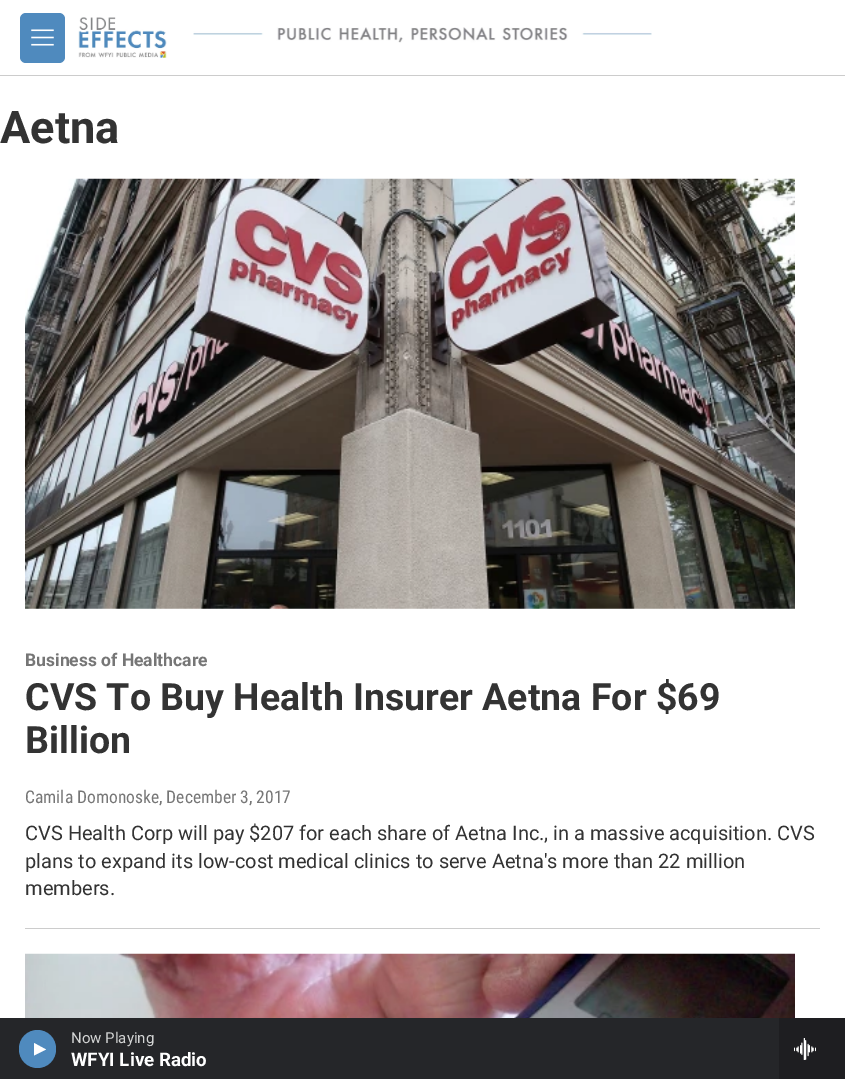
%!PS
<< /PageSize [845 1079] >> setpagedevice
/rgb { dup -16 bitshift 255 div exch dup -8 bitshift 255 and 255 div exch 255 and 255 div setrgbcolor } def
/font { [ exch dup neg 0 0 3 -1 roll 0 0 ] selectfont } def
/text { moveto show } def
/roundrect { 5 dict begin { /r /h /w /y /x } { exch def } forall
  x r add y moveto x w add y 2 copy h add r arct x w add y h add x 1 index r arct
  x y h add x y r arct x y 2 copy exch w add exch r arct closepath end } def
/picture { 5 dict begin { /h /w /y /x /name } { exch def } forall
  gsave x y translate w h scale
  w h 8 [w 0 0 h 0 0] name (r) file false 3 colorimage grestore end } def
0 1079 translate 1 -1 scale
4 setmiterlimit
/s1 { /Roboto-Bold 45 font 16#333333 rgb } def
/s2 { /Roboto-Bold 17.5 font 16#767676 rgb } def
/s3 { /Roboto-Bold 37.5 font 16#333333 rgb } def
/s4 { /RobotoCondensed-Regular 17.5 font 16#767676 rgb } def
/s5 { /Roboto-Regular 20 font 16#333333 rgb } def
/s6 { /Roboto-Regular 15 font 16#D3D4D4 rgb } def
/s7 { /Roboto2-Bold 18.75 font 16#FFFFFF rgb } def
16#FFFFFF rgb
0 0 845 1079 rectfill
s1
(Aetna) 0 143 text
16#CCCCCC rgb
25 928 795 1 rectfill
(pic1.raw) 25 178 770 431 picture
s2
(Business of Healthcare) 25 666 text
s3
(CVS To Buy Health Insurer Aetna For $69) 25 710 text
(Billion) 25 753 text
s4
(Camila Domonoske, December 3, 2017) 25 803 text
s5
(CVS Health Corp will pay $207 for each share of Aetna Inc., in a massive acquisition. CVS) 25 840 text
(plans to expand its low-cost medical clinics to serve Aetna's more than 22 million) 25 868 text
(members.) 25 895 text
(pic2.raw) 25 953 770 65 picture
16#CCCCCC rgb
0 75 845 1 rectfill
16#4F8ABE rgb
20 13 45 50 6 roundrect fill
(pic3.raw) 31 29 23 17 picture
(pic4.raw) 78 17 89 41 picture
(pic5.raw) 193 27 459 16 picture
16#252629 rgb
0 1018 779 61 rectfill
16#4F8ABE rgb
19 1030 37 38 18.5 roundrect fill
16#FFFFFF rgb
34 1043 moveto 46 1049.5 lineto 34 1055.5 lineto closepath fill
s6
(Now Playing) 71 1043 text
s7
(WFYI Live Radio) 71 1066 text
16#1E1E21 rgb
779 1018 66 61 rectfill
(pic6.raw) 794 1038 22 22 picture
showpage
